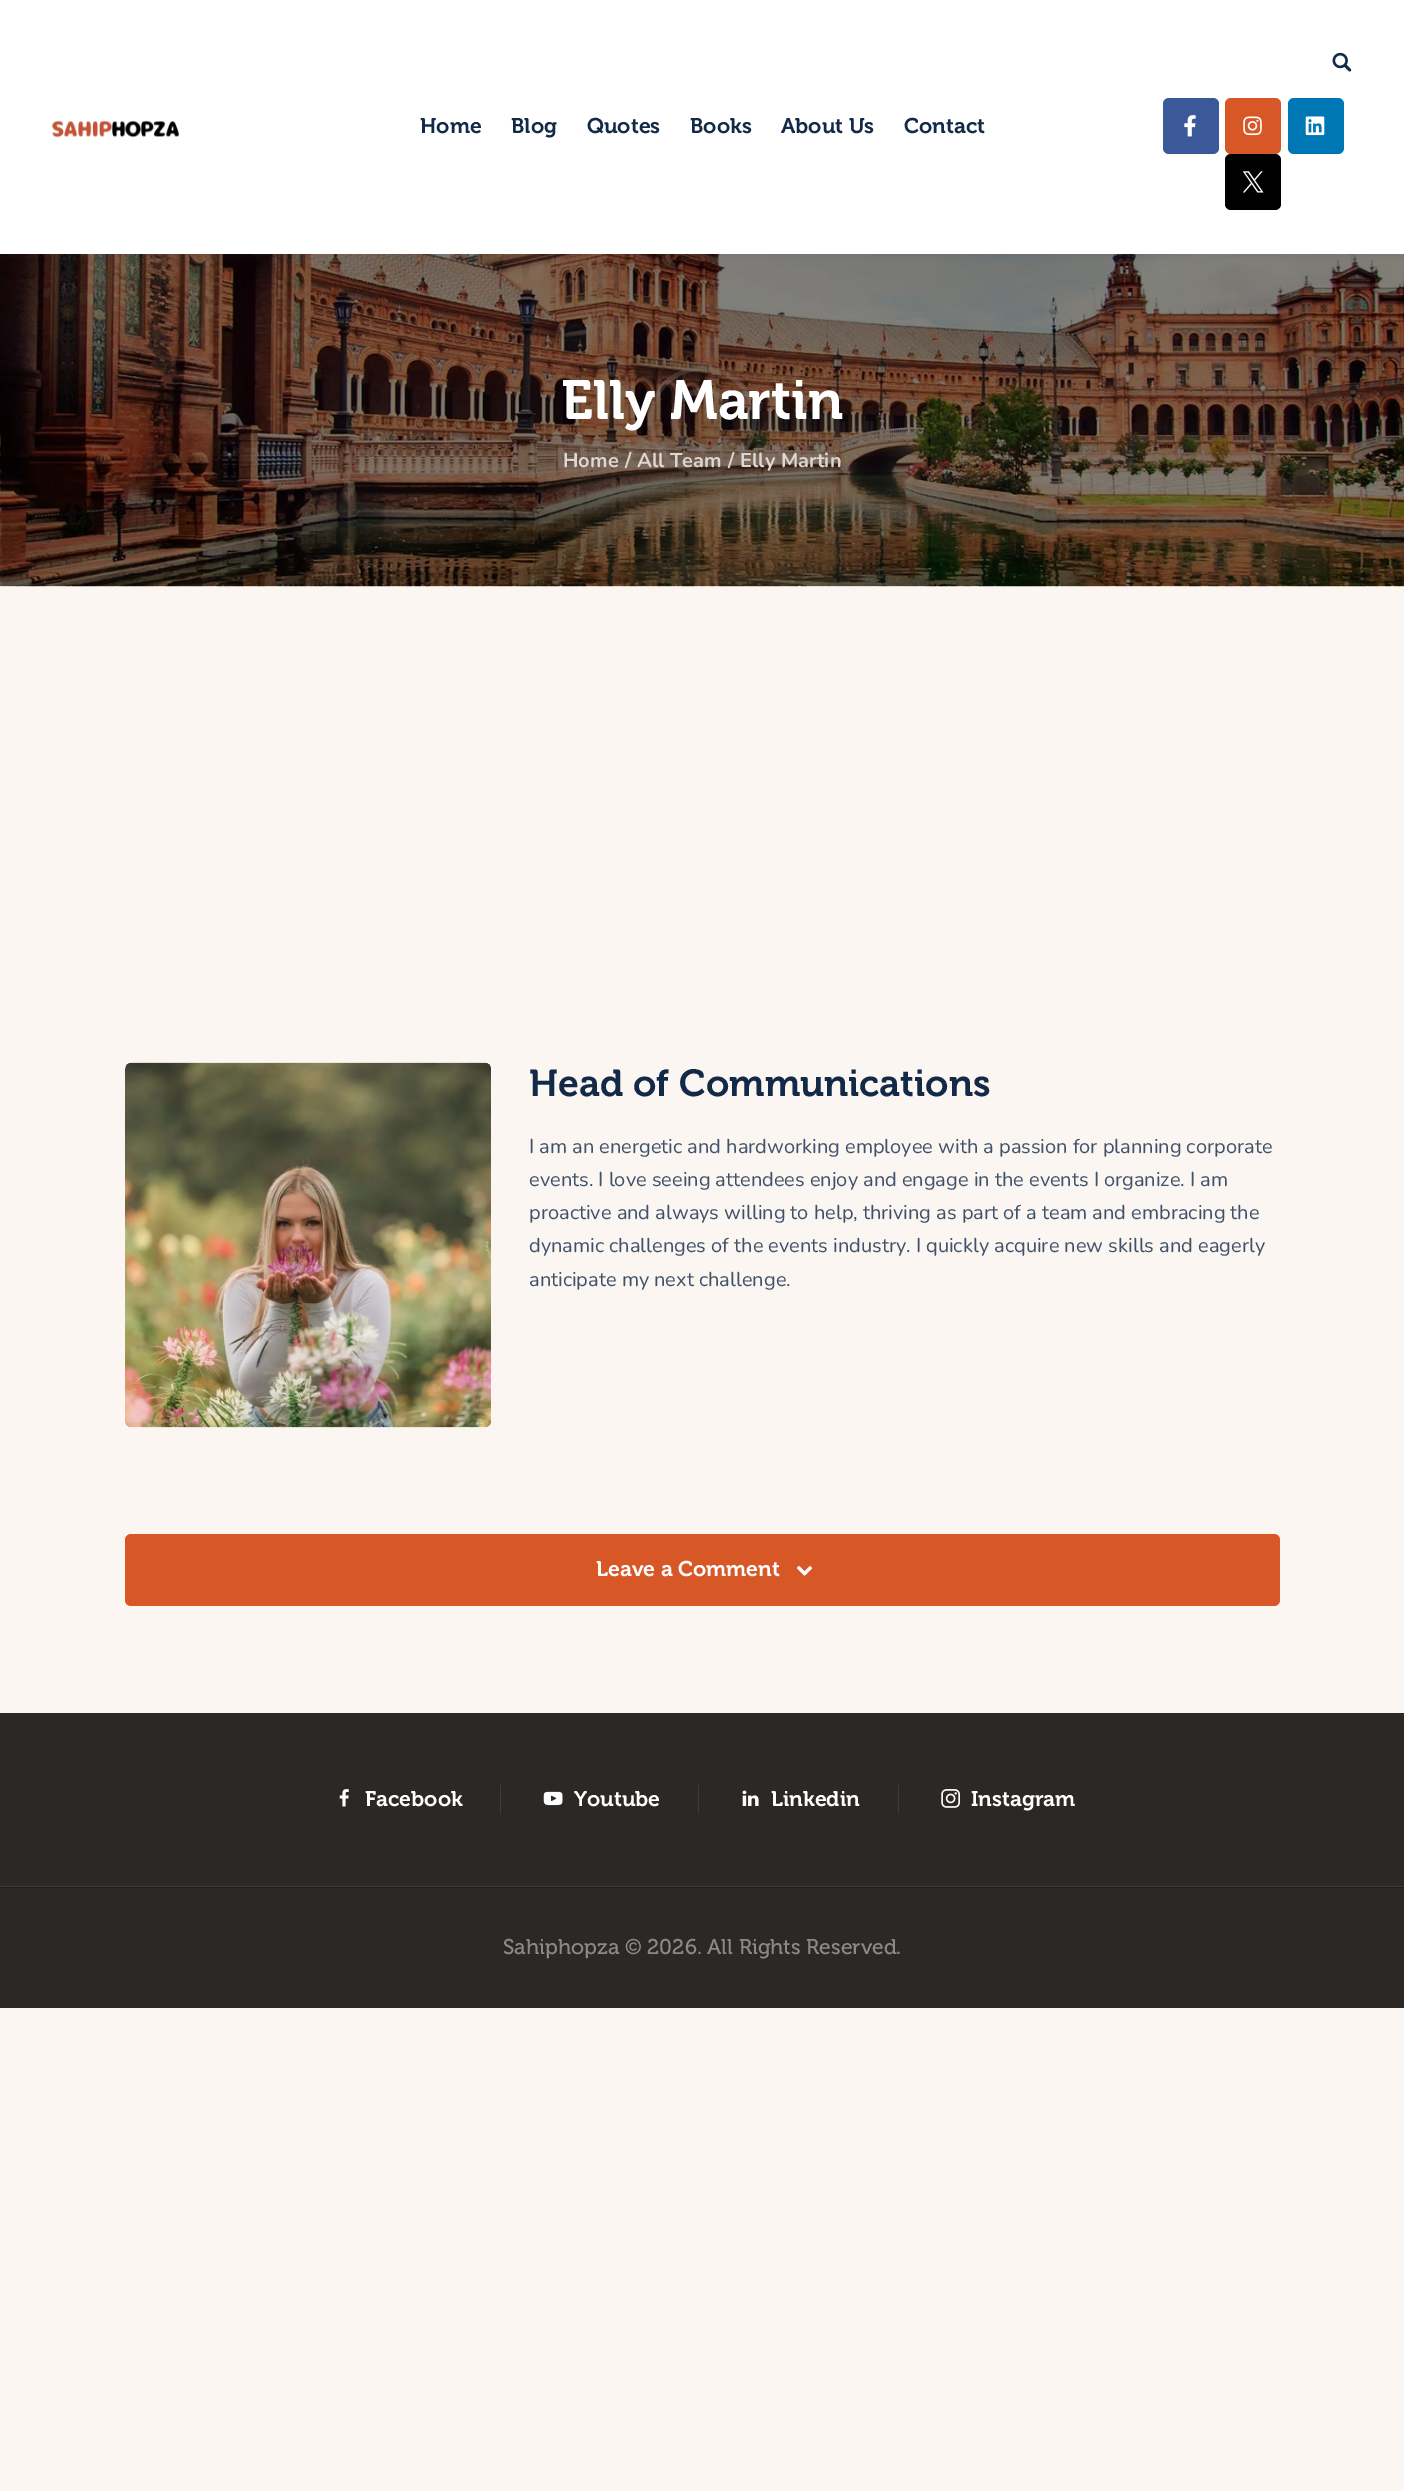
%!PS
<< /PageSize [1404 2491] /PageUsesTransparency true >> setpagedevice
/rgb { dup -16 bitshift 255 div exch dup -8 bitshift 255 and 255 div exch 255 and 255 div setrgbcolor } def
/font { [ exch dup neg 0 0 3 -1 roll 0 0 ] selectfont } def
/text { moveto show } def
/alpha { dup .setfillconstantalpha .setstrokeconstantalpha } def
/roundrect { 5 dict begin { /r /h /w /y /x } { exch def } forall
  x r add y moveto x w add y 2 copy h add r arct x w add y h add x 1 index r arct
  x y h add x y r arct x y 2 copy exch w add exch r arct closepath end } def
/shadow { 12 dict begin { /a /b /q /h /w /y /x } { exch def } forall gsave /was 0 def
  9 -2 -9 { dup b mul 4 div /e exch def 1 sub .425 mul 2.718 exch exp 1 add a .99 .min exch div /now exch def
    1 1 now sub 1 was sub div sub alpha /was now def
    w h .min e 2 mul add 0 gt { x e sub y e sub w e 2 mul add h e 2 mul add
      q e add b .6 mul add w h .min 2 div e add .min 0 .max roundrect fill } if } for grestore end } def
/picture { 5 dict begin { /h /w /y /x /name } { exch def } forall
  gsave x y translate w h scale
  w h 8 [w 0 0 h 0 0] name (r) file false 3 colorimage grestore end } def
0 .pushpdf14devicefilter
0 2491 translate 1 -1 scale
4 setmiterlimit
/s1 { /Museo-SemiBold 21.25 font 16#122947 rgb } def
/s2 { /Museo-SemiBold 55 font 16#FFFFFF rgb } def
/s3 { /Nunito-Bold 20 font 16#DCD7D3 rgb } def
/s4 { /Museo-SemiBold 37.5 font 16#122947 rgb } def
/s5 { /Nunito-Regular 20 font 16#40526A rgb } def
/s6 { /Museo-SemiBold 21.25 font 16#FFFFFF rgb } def
/s7 { /Museo-Regular 21.25 font 16#8C8987 rgb } def
16#FBF6F2 rgb
0 0 1404 2491 rectfill
(pic7.raw) 0 254 1404 333 picture
16#464646 rgb
0 4 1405 254 0 3 0.1 shadow
16#FFFFFF rgb
0 0 1404 254 rectfill
(pic1.raw) 51 120 129 18 picture
s1
(Home) 420 133 text
(Blog) 511 133 text
(Quotes) 587 133 text
(Books) 690 133 text
(About Us) 781 133 text
(Contact) 904 133 text
(pic2.raw) 1332 52 20 20 picture
16#3B5998 rgb
1163 98 56 56 6 roundrect fill
(pic3.raw) 1184 115 12 22 picture
16#D85726 rgb
1225 98 56 56 6 roundrect fill
(pic4.raw) 1243 116 19 20 picture
16#0077B5 rgb
1288 98 56 56 6 roundrect fill
(pic5.raw) 1305 116 20 20 picture
16#000000 rgb
1225 154 56 56 6 roundrect fill
(pic6.raw) 1243 171 21 22 picture
s2
(Elly Martin) 561 419 text
s3
(Home) 563 467 text
(/) 625 467 text
(All Team) 637 467 text
(/) 728 467 text
(Elly Martin) 740 467 text
(pic8.raw) 125 1062 366 366 picture
s4
(Head of Communications) 529 1096 text
s5
(I am an energetic and hardworking employee with a passion for planning corporate) 529 1153 text
(events. I love seeing attendees enjoy and engage in the events I organize. I am) 529 1186 text
(proactive and always willing to help, thriving as part of a team and embracing the) 529 1219 text
(dynamic challenges of the events industry. I quickly acquire new skills and eagerly) 529 1252 text
(anticipate my next challenge.) 529 1286 text
16#D85726 rgb
125 1534 1155 72 6 roundrect fill
s6
(Leave a Comment) 596 1576 text
(pic9.raw) 797 1566 15 10 picture
16#1E1D1D rgb
0 1887 1404 1 rectfill
16#2B2825 rgb
0 1713 1404 173 rectfill
(pic10.raw) 339 1789 10 18 picture
s6
(Facebook) 365 1806 text
16#403B37 rgb
500 1785 1 29 rectfill
(pic11.raw) 543 1791 20 15 picture
s6
(Youtube) 574 1806 text
16#403B37 rgb
698 1785 1 29 rectfill
(pic12.raw) 742 1790 17 16 picture
s6
(Linkedin) 771 1806 text
16#403B37 rgb
898 1785 1 29 rectfill
(pic13.raw) 941 1789 19 19 picture
s6
(Instagram) 971 1806 text
16#2B2825 rgb
0 1888 1404 120 rectfill
16#403B37 rgb
0 1886 1404 1 rectfill
s7
(Sahiphopza © 2026. All Rights Reserved.) 503 1954 text
.poppdf14devicefilter showpage
